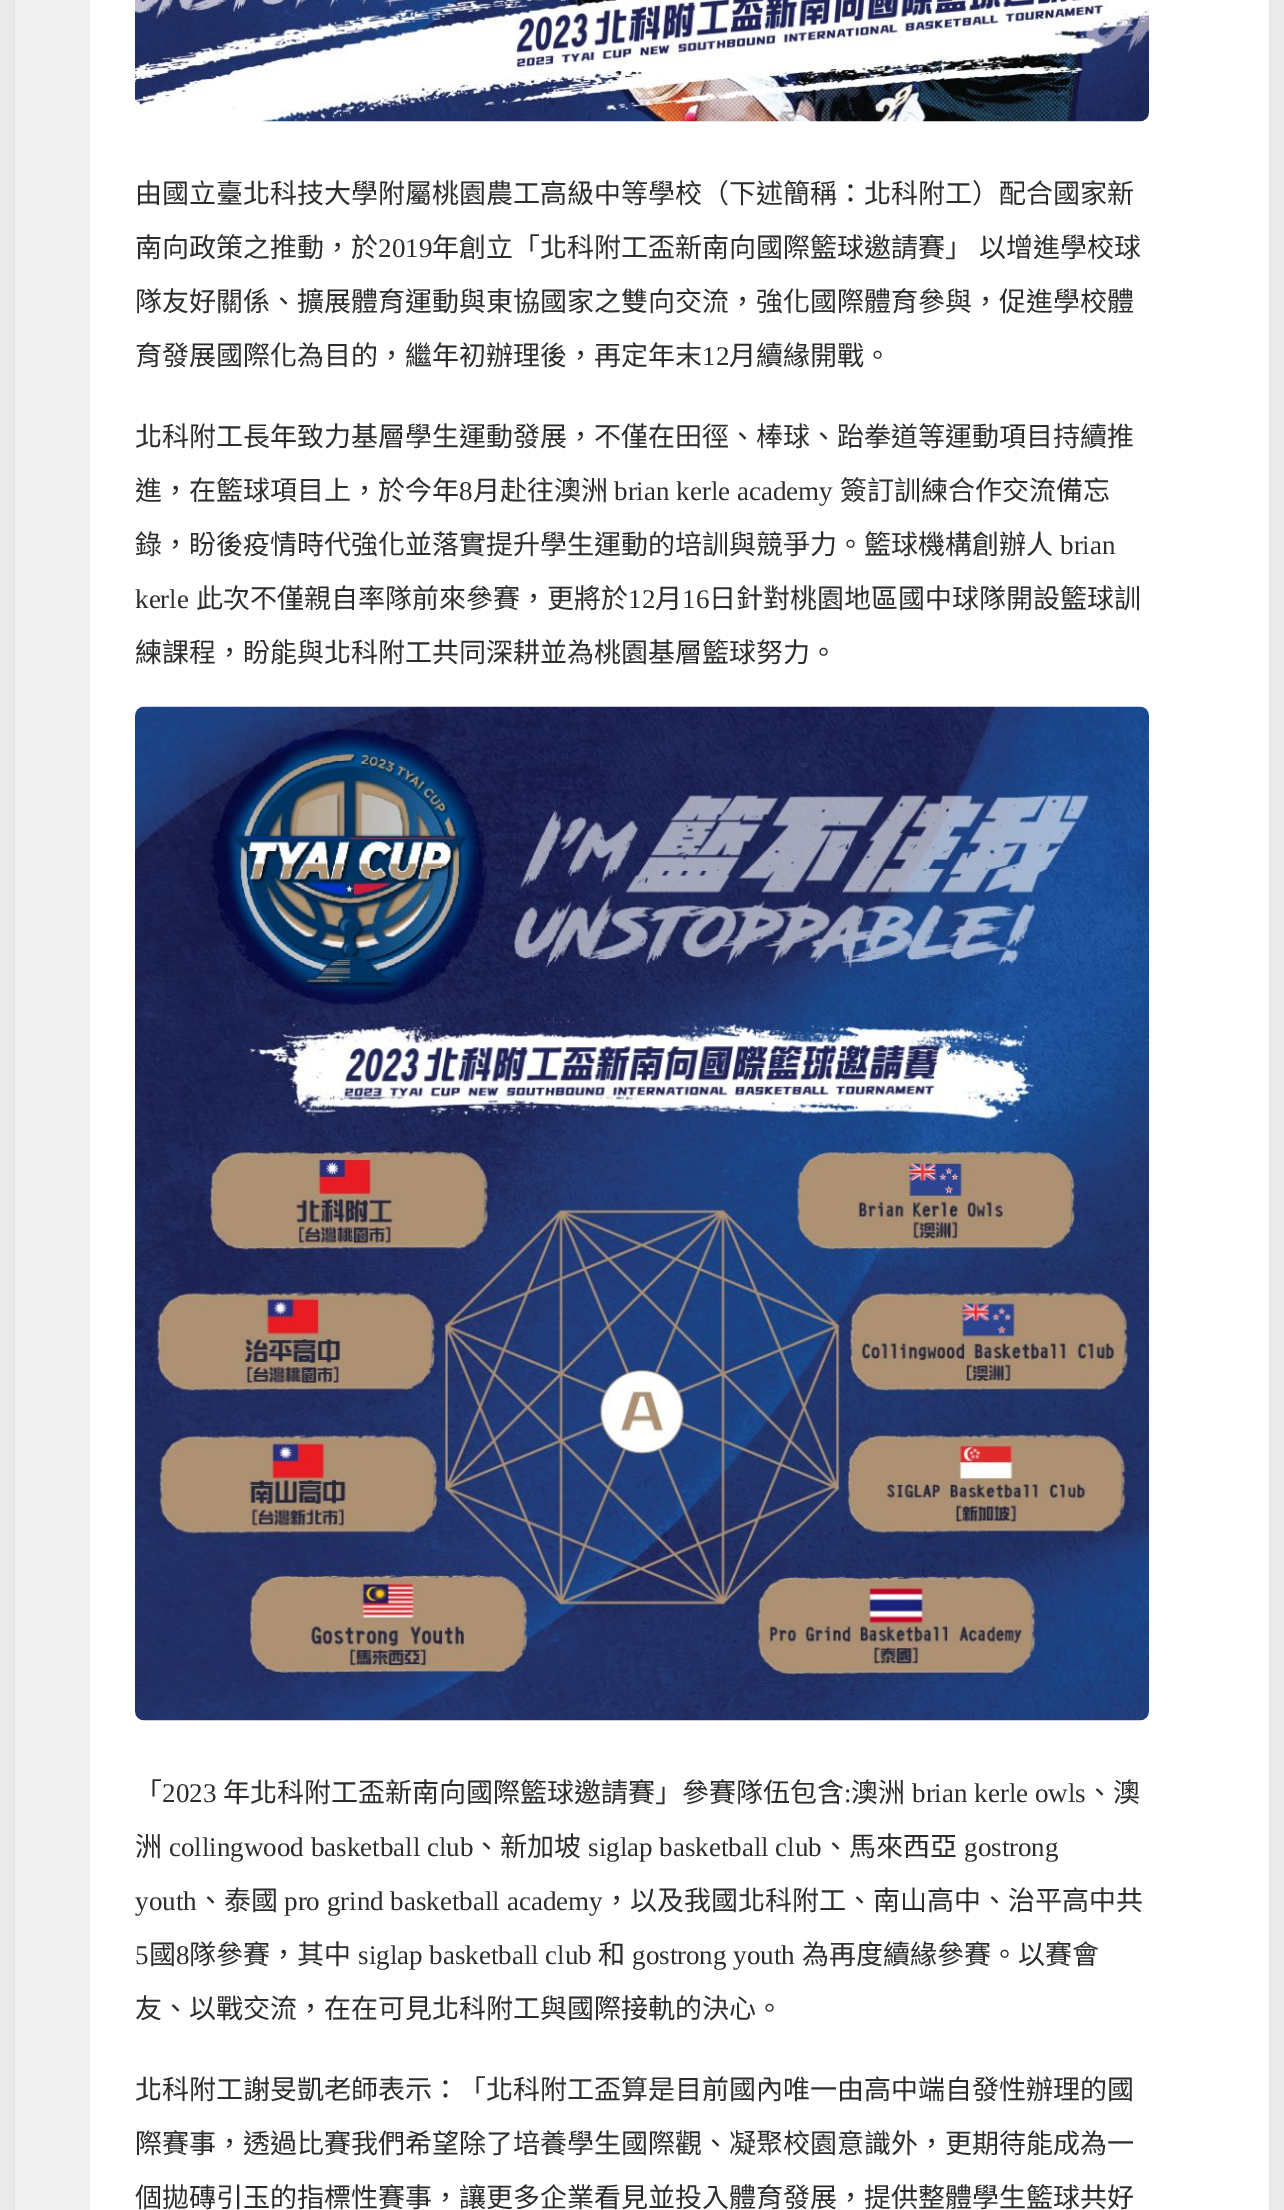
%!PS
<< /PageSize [1284 2210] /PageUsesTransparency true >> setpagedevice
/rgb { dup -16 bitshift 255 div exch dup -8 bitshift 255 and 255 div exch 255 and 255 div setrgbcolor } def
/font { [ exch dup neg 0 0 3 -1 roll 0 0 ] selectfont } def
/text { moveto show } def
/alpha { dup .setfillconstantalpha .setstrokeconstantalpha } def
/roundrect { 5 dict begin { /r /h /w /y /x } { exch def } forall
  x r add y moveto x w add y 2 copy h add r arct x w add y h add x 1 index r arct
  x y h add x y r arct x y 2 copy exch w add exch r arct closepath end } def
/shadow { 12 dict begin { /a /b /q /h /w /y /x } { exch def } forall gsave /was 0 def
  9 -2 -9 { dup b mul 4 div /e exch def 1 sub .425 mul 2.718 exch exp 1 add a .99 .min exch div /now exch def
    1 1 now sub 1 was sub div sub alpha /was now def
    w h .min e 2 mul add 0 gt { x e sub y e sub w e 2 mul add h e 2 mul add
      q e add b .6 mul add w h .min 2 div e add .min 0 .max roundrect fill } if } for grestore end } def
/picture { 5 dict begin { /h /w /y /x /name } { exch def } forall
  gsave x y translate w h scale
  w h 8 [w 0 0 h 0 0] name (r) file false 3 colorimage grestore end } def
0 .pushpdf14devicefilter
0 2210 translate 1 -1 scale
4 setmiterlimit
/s1 { /NotoSansCJKTC-Regular 27 font 16#2D2D2D rgb } def
/s2 { /LiberationSerif-Regular 27 font 16#2D2D2D rgb } def
16#EAEAEA rgb
0 0 1284 2210 rectfill
16#000000 rgb
15 -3 1254 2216 0 1 0.1 shadow
16#FFFFFF rgb
90 0 1179 2210 rectfill
16#F0F0F0 rgb
15 0 75 2210 rectfill
(pic1.raw) 135 0 1014 122 picture
s1
(由國立臺北科技大學附屬桃園農工高級中等學校（下述簡稱：北科附工）配合國家新) 135 203 text
(南向政策之推動，於) 135 257 text
s2
(2019) 378 257 text
/NotoSansCJKTC-Regular 27 font
432 257 moveto 1 0 32 (年創立「北科附工盃新南向國際籃球邀請賽」 以增進學校球) widthshow
(隊友好關係、擴展體育運動與東協國家之雙向交流，強化國際體育參與，促進學校體) 135 311 text
(育發展國際化為目的，繼年初辦理後，再定年末) 135 365 text
s2
(12) 702 365 text
s1
(月續緣開戰。) 729 365 text
(北科附工長年致力基層學生運動發展，不僅在田徑、棒球、跆拳道等運動項目持續推) 135 446 text
(進，在籃球項目上，於今年) 135 500 text
s2
(8) 459 500 text
s1
(月赴往澳洲) 473 500 text
s2
(brian kerle academy) 614 500 text
s1
(簽訂訓練合作交流備忘) 840 500 text
(錄，盼後疫情時代強化並落實提升學生運動的培訓與競爭力。籃球機構創辦人) 135 554 text
s2
(brian) 1060 554 text
(kerle) 135 608 text
s1
(此次不僅親自率隊前來參賽，更將於) 196 608 text
s2
(12) 628 608 text
s1
(月) 655 608 text
s2
(16) 682 608 text
s1
(日針對桃園地區國中球隊開設籃球訓) 709 608 text
(練課程，盼能與北科附工共同深耕並為桃園基層籃球努力。) 135 662 text
(pic2.raw) 135 706 1014 1015 picture
(「) 135 1802 text
s2
(2023) 162 1802 text
s1
(年北科附工盃新南向國際籃球邀請賽」參賽隊伍包含) 223 1802 text
s2
(:) 844 1802 text
s1
(澳洲) 851 1802 text
s2
(brian kerle owls) 912 1802 text
s1
(、澳) 1086 1802 text
(洲) 135 1856 text
s2
(collingwood basketball club) 169 1856 text
s1
(、新加坡) 473 1856 text
s2
(siglap basketball club) 588 1856 text
s1
(、馬來西亞) 822 1856 text
s2
(gostrong) 964 1856 text
(youth) 135 1910 text
s1
(、泰國) 197 1910 text
s2
(pro grind basketball academy) 284 1910 text
s1
(，以及我國北科附工、南山高中、治平高中共) 603 1910 text
s2
(5) 135 1964 text
s1
(國) 149 1964 text
s2
(8) 176 1964 text
s1
(隊參賽，其中) 189 1964 text
s2
(siglap basketball club) 358 1964 text
s1
(和) 598 1964 text
s2
(gostrong youth) 632 1964 text
s1
(為再度續緣參賽。以賽會) 802 1964 text
(友、以戰交流，在在可見北科附工與國際接軌的決心。) 135 2018 text
(北科附工謝旻凱老師表示：「北科附工盃算是目前國內唯一由高中端自發性辦理的國) 135 2099 text
(際賽事，透過比賽我們希望除了培養學生國際觀、凝聚校園意識外，更期待能成為一) 135 2153 text
(個拋磚引玉的指標性賽事，讓更多企業看見並投入體育發展，提供整體學生籃球共好) 135 2207 text
.poppdf14devicefilter showpage
